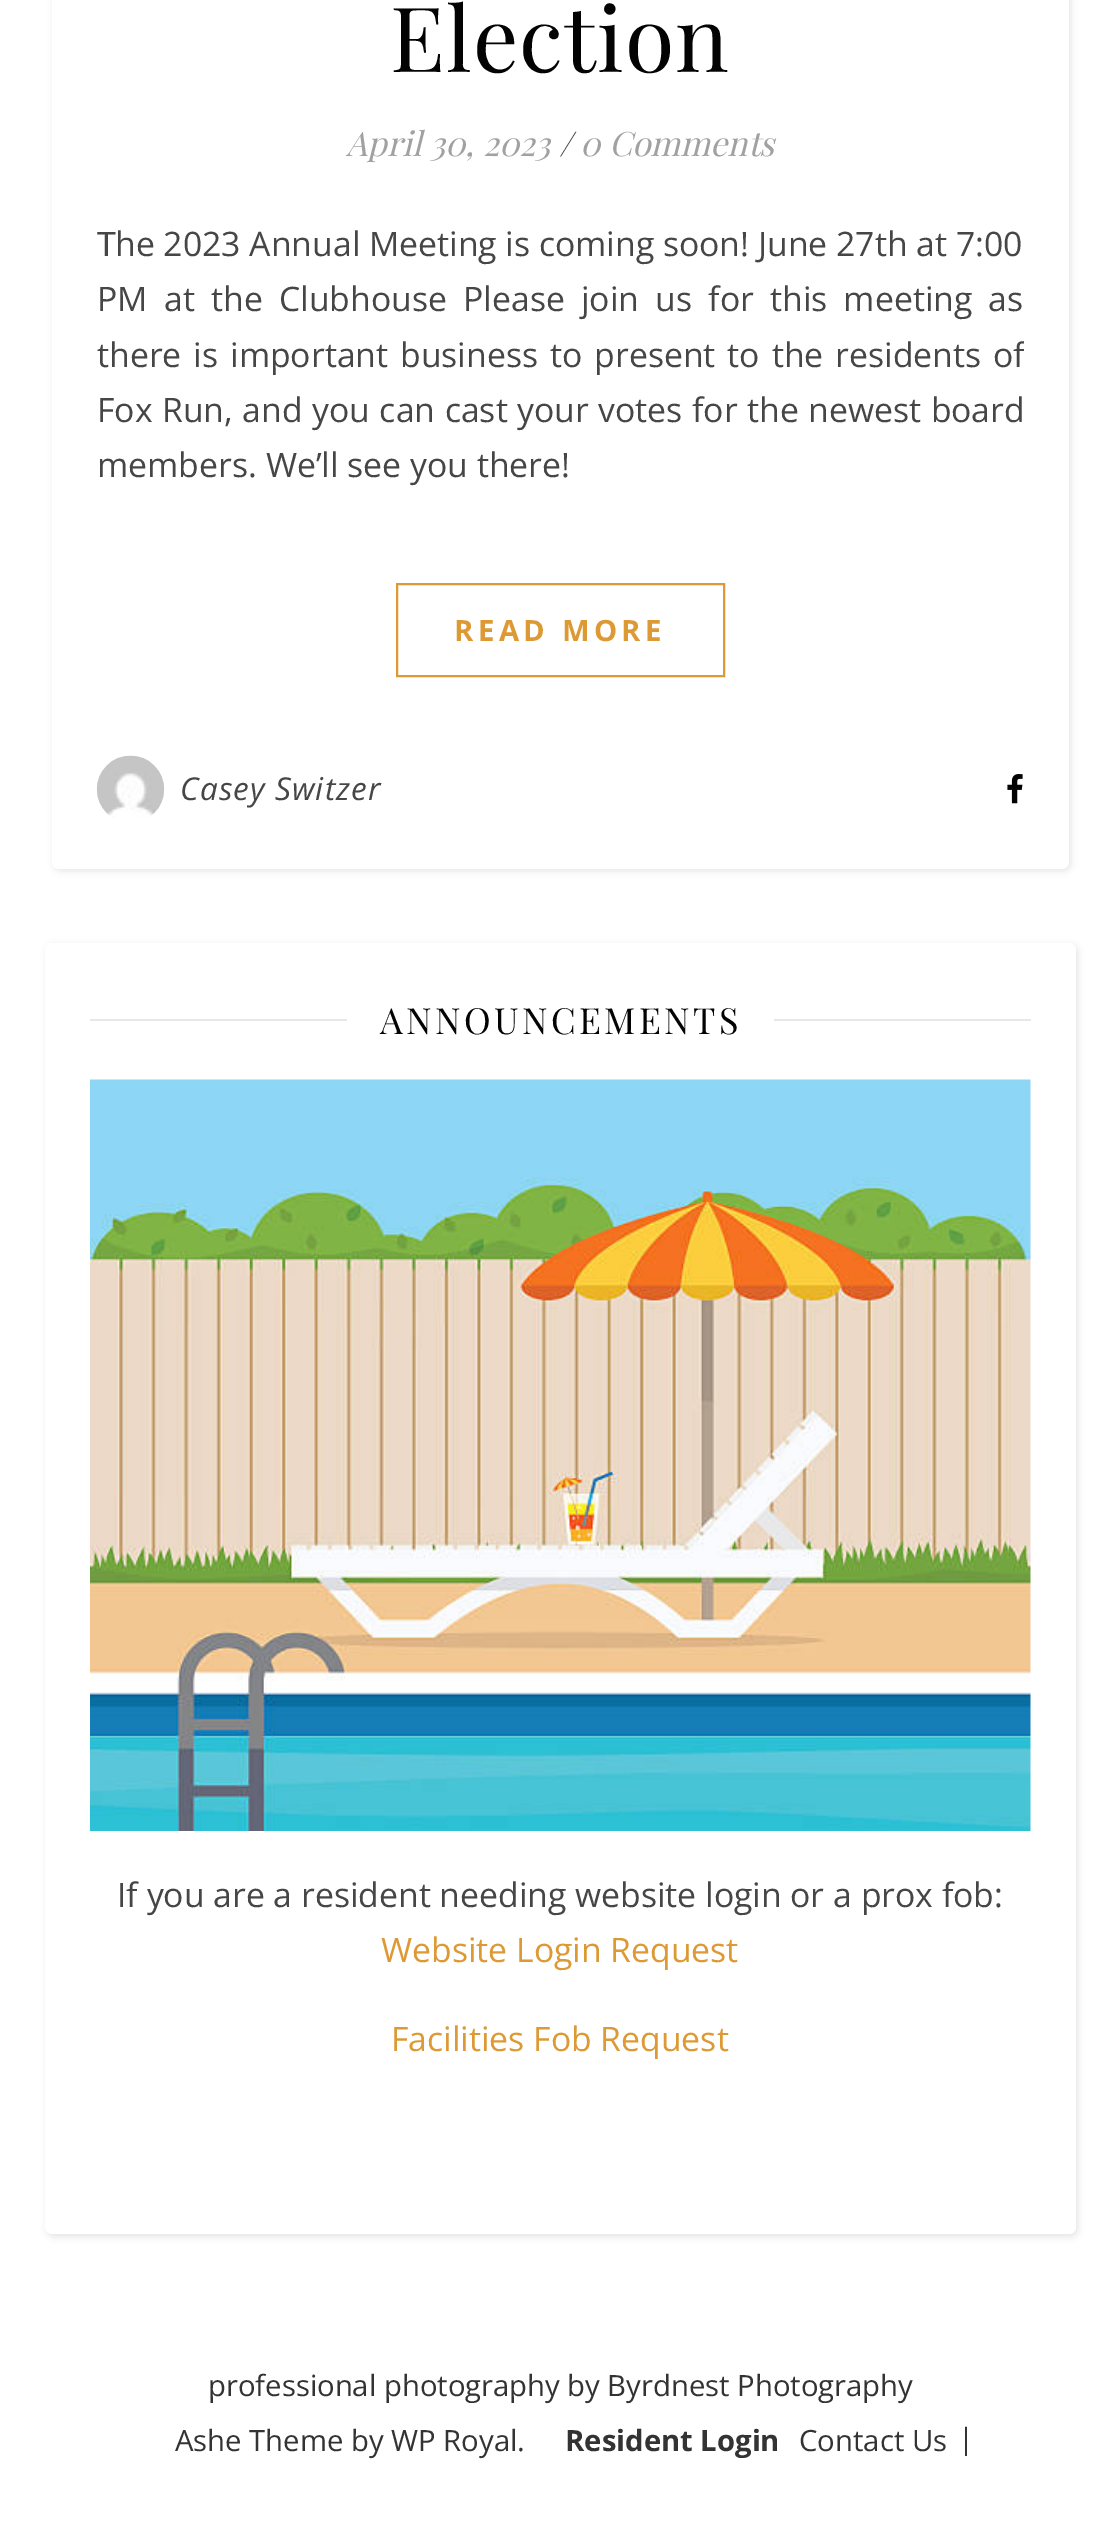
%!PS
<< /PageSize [1120 2523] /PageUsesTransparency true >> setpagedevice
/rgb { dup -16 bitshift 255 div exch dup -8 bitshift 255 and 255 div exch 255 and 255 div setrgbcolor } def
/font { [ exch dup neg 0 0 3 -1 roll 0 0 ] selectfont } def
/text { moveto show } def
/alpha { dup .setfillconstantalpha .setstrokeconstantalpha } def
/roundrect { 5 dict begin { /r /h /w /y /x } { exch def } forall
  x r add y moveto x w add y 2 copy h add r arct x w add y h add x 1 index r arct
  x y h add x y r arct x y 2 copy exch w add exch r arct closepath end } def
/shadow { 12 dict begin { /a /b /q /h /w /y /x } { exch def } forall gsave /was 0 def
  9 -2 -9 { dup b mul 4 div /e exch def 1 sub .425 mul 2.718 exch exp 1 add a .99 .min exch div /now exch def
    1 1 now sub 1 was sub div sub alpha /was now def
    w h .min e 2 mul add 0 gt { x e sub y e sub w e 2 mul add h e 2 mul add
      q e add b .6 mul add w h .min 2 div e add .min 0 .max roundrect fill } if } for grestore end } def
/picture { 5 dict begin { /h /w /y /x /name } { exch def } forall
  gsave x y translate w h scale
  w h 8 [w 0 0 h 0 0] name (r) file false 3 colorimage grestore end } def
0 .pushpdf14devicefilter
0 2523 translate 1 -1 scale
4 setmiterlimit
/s1 { /PlayfairDisplay-Italic 33.75 font 16#A1A1A1 rgb } def
/s2 { /PlayfairDisplay-Italic 33.75 font 16#464646 rgb } def
/s3 { /NotoSans-Regular 33.75 font 16#464646 rgb } def
/s4 { /OpenSans-Regular 33.75 font 16#464646 rgb } def
/s5 { /OpenSans-Regular 33.75 font 16#DD9933 rgb } def
/s6 { /OpenSans-Regular 29.25 font 16#333333 rgb } def
/s7 { /OpenSans-Bold 29.25 font 16#333333 rgb } def
16#FFFFFF rgb
0 0 1120 2523 rectfill
16#000000 rgb
54 -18 1017 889 7 3.5 0.1 shadow
16#FFFFFF rgb
52 -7 1017 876 7 roundrect fill
/PlayfairDisplay-Regular 90 font
16#030303 rgb
390 72 moveto 1.1 0 (Election) ashow
s1
(April 30, 2023) 346 156 text
s2
(/) 559 156 text
s1
(0 Comments) 580 156 text
s3
(T) 97 256 text
s4
(he 2023 Annual Meeting is coming soon! June 27th at 7:00) 115 256 text
97 311 moveto 7.5 0 32 (PM at the Clubhouse Please join us for this meeting as) widthshow
gsave
97 216 927 311 rectclip
97 367 moveto 3.25 0 32 (there is important business to present to the residents of) widthshow
grestore
97 422 moveto 0.75 0 32 (Fox Run, and you can cast your votes for the newest board) widthshow
(members. We’ll see you there!) 97 477 text
16#DD9933 rgb
2 setlinewidth
397 584 327 92 rectstroke
/OpenSans-Bold 29.25 font
454 641 moveto 4.5 0 (READ MORE) ashow
(pic1.raw) 96 755 69 63 picture
/OpenSans-Italic 31.5 font
16#464646 rgb
180 800 moveto 1.1 0 (Casey Switzer) ashow
(pic2.raw) 1007 774 16 30 picture
16#000000 rgb
47 945 1031 1292 7 3.5 0.1 shadow
16#FFFFFF rgb
45 943 1031 1291 7 roundrect fill
16#E8E8E8 rgb
90 1019 257 2 rectfill
/PlayfairDisplay-Regular 36 font
16#030303 rgb
380 1034 moveto 3.4 0 (ANNOUNCEMENTS) ashow
16#E8E8E8 rgb
774 1019 257 2 rectfill
(pic3.raw) 90 1079 941 752 picture
s4
(If you are a resident needing website login or a prox fob:) 117 1907 text
s5
(Website Login Request) 381 1962 text
(Facilities Fob Request) 391 2051 text
s6
(professional photography by Byrdnest Photography) 208 2396 text
(Ashe Theme by WP Royal.) 175 2451 text
s7
(Resident Login) 565 2451 text
s6
(Contact Us) 799 2451 text
(|) 958 2449 text
.poppdf14devicefilter showpage
